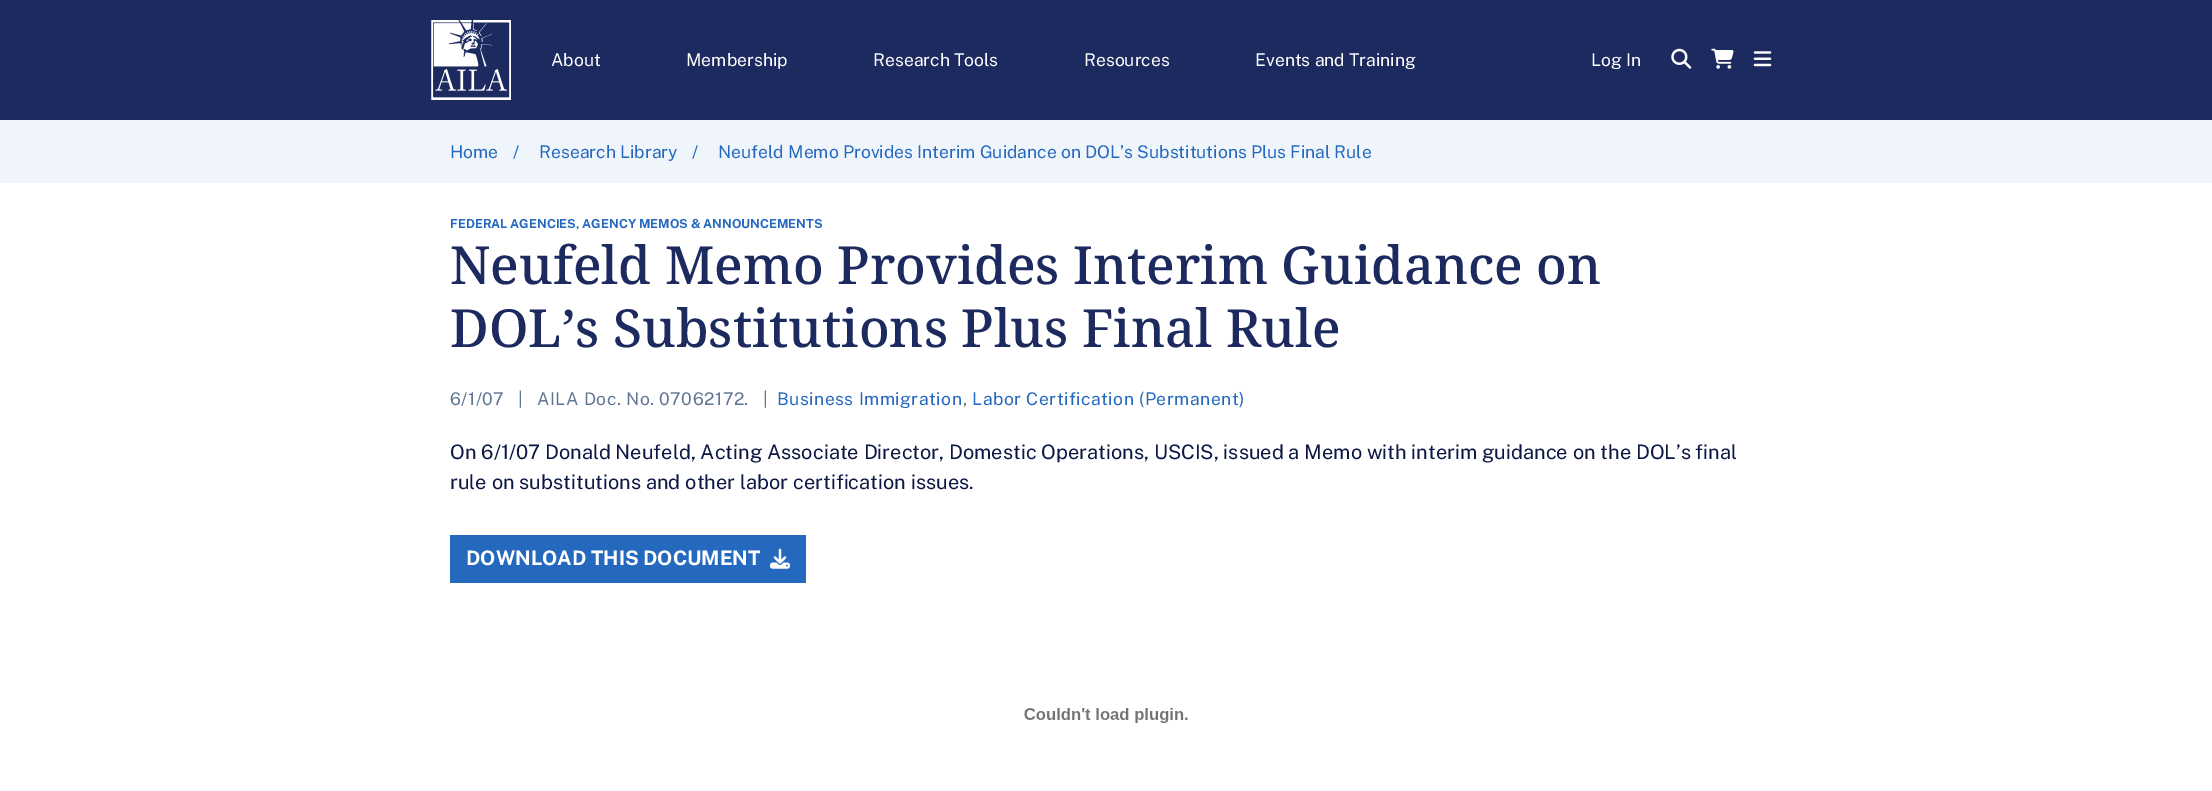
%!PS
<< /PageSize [2212 791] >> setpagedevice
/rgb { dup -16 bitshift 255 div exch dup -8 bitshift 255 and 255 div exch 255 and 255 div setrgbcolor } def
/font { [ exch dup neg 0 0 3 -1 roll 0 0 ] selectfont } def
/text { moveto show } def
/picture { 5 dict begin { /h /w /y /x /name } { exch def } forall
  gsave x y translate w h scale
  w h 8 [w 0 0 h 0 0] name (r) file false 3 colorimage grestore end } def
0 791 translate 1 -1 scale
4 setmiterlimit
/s1 { /PublicSans-Regular 17.5 font 16#FFFFFF rgb } def
/s2 { /PublicSans-Regular 17.5 font 16#2469BE rgb } def
/s3 { /PublicSans-Bold 12.5 font 16#2469BE rgb } def
/s4 { /NotoSerif-Medium 52.5 font 16#1C2A5F rgb } def
/s5 { /PublicSans-Regular 20 font 16#0C1744 rgb } def
/s6 { /PublicSans-Bold 20 font 16#FFFFFF rgb } def
16#FFFFFF rgb
0 0 2212 791 rectfill
16#1C2A5F rgb
0 0 2212 120 rectfill
(pic1.raw) 431 20 80 80 picture
s1
(About) 551 66 text
(Membership) 686 66 text
(Research Tools) 873 66 text
(Resources) 1084 66 text
(Events and Training) 1255 66 text
(Log In) 1591 66 text
(pic2.raw) 1671 48 21 21 picture
(pic3.raw) 1711 48 23 21 picture
(pic4.raw) 1753 51 19 16 picture
16#F0F5FC rgb
0 120 2212 63 rectfill
s2
(Home) 450 158 text
(/) 513 158 text
(Research Library) 539 158 text
(/) 692 158 text
(Neufeld Memo Provides Interim Guidance on DOL’s Substitutions Plus Final Rule) 718 158 text
s3
(FEDERAL AGENCIES, AGENCY MEMOS & ANNOUNCEMENTS) 450 228 text
s4
(Neufeld Memo Provides Interim Guidance on) 450 284 text
(DOL’s Substitutions Plus Final Rule) 450 347 text
/PublicSans-Regular 17.5 font
16#617694 rgb
450 405 moveto 0.5 0 (6/1/07) ashow
518 405 moveto 0.5 0 (|) ashow
537 405 moveto 0.5 0 (AILA Doc. No. 07062172.) ashow
763 405 moveto 0.5 0 (|) ashow
16#2469BE rgb
777 405 moveto 0.5 0 (Business Immigration) ashow
16#617694 rgb
963 405 moveto 0.5 0 (,) ashow
16#2469BE rgb
972 405 moveto 0.5 0 (Labor Certification \(Permanent\)) ashow
s5
(On 6/1/07 Donald Neufeld, Acting Associate Director, Domestic Operations, USCIS, issued a Memo with interim guidance on the DOL’s final) 450 459 text
(rule on substitutions and other labor certification issues.) 450 489 text
16#2469BE rgb
450 535 356 48 rectfill
s6
(DOWNLOAD THIS DOCUMENT) 466 565 text
(pic5.raw) 770 548 20 21 picture
(pic6.raw) 1024 708 164 15 picture
showpage
